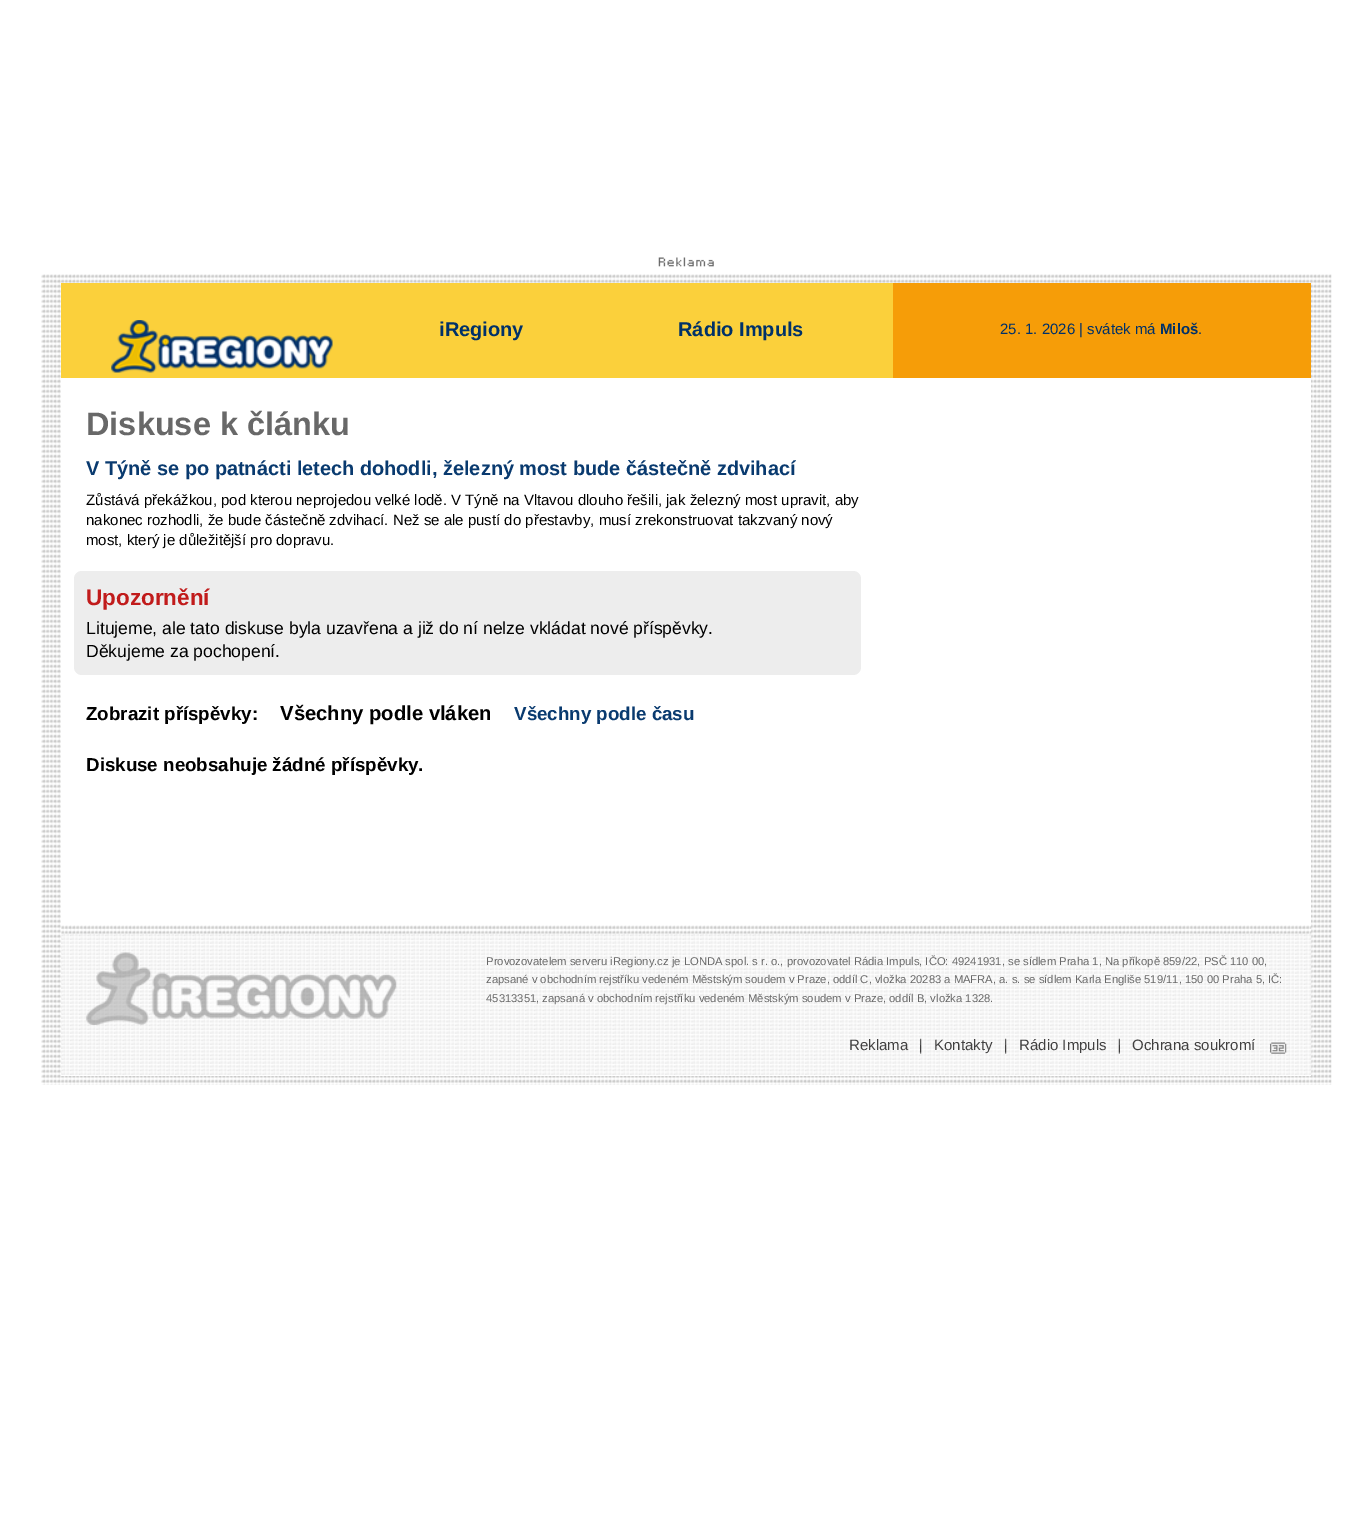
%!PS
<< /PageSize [1371 1520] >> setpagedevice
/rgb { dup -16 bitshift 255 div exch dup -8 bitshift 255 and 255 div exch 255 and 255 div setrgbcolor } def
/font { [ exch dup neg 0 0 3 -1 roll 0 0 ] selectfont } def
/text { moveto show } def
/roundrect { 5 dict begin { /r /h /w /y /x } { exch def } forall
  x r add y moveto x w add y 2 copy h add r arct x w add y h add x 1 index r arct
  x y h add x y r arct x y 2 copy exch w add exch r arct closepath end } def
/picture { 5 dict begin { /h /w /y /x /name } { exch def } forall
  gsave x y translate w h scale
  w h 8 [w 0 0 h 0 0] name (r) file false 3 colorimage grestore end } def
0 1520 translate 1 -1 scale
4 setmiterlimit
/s1 { /LiberationSans-Bold 20 font 16#003169 rgb } def
/s2 { /LiberationSans-Regular 15 font 16#003169 rgb } def
/s3 { /LiberationSans-Bold 15 font 16#003169 rgb } def
/s4 { /LiberationSans-Bold 32.5 font 16#686868 rgb } def
/s5 { /LiberationSans-Bold 19.95 font 16#093A6F rgb } def
/s6 { /LiberationSans-Regular 15 font 16#000000 rgb } def
/s7 { /LiberationSans-Bold 22.5 font 16#C11B1B rgb } def
/s8 { /LiberationSans-Regular 17.55 font 16#000000 rgb } def
/s9 { /LiberationSans-Bold 18.75 font 16#000000 rgb } def
/s10 { /LiberationSans-Bold 20.25 font 16#000000 rgb } def
/s11 { /LiberationSans-Bold 18.75 font 16#093A6F rgb } def
/s12 { /LiberationSans-Regular 11.25 font 16#686868 rgb } def
/s13 { /LiberationSans-Regular 15 font 16#414040 rgb } def
16#FFFFFF rgb
0 0 1371 1520 rectfill
(pic1.raw) 658 257 56 10 picture
(pic2.raw) 41 274 1291 811 picture
61 378 1250 698 rectfill
16#FBD03B rgb
61 283 832 95 rectfill
(pic3.raw) 111 320 222 53 picture
s1
(iRegiony) 439 336 text
(Rádio Impuls) 678 336 text
16#F69D08 rgb
893 283 418 95 rectfill
s2
(25. 1. 2026 | svátek má) 1000 334 text
s3
(Miloš) 1160 334 text
s2
(.) 1198 334 text
s4
(Diskuse k článku) 86 435 text
s5
(V Týně se po patnácti letech dohodli, železný most bude částečně zdvihací) 86 475 text
s6
(Zůstává překážkou, pod kterou neprojedou velké lodě. V Týně na Vltavou dlouho řešili, jak železný most upravit, aby) 86 505 text
(nakonec rozhodli, že bude částečně zdvihací. Než se ale pustí do přestavby, musí zrekonstruovat takzvaný nový) 86 525 text
(most, který je důležitější pro dopravu.) 86 545 text
16#EDEDED rgb
74 571 787 104 8 roundrect fill
s7
(Upozornění) 86 605 text
s8
(Litujeme, ale tato diskuse byla uzavřena a již do ní nelze vkládat nové příspěvky.) 86 634 text
(Děkujeme za pochopení.) 86 657 text
s9
(Zobrazit příspěvky:) 86 720 text
s10
(Všechny podle vláken) 280 720 text
s11
(Všechny podle času) 514 720 text
s9
(Diskuse neobsahuje žádné příspěvky.) 86 771 text
(pic4.raw) 61 925 1251 150 picture
(pic5.raw) 61 933 1251 142 picture
(pic6.raw) 86 952 311 73 picture
s12
(Provozovatelem serveru iRegiony.cz je LONDA spol. s r. o., provozovatel Rádia Impuls, IČO: 49241931, se sídlem Praha 1, Na příkopě 859/22, PSČ 110 00,) 486 965 text
(zapsané v obchodním rejstříku vedeném Městským soudem v Praze, oddíl C, vložka 20283 a MAFRA, a. s. se sídlem Karla Engliše 519/11, 150 00 Praha 5, IČ:) 486 983 text
(45313351, zapsaná v obchodním rejstříku vedeném Městským soudem v Praze, oddíl B, vložka 1328.) 486 1002 text
(pic7.raw) 920 1038 2 16 picture
s13
(Reklama) 849 1050 text
(pic8.raw) 1005 1038 2 16 picture
(Kontakty) 934 1050 text
(pic9.raw) 1118 1038 2 16 picture
(Rádio Impuls) 1019 1050 text
(Ochrana soukromí) 1132 1050 text
(pic10.raw) 1270 1042 17 12 picture
showpage
